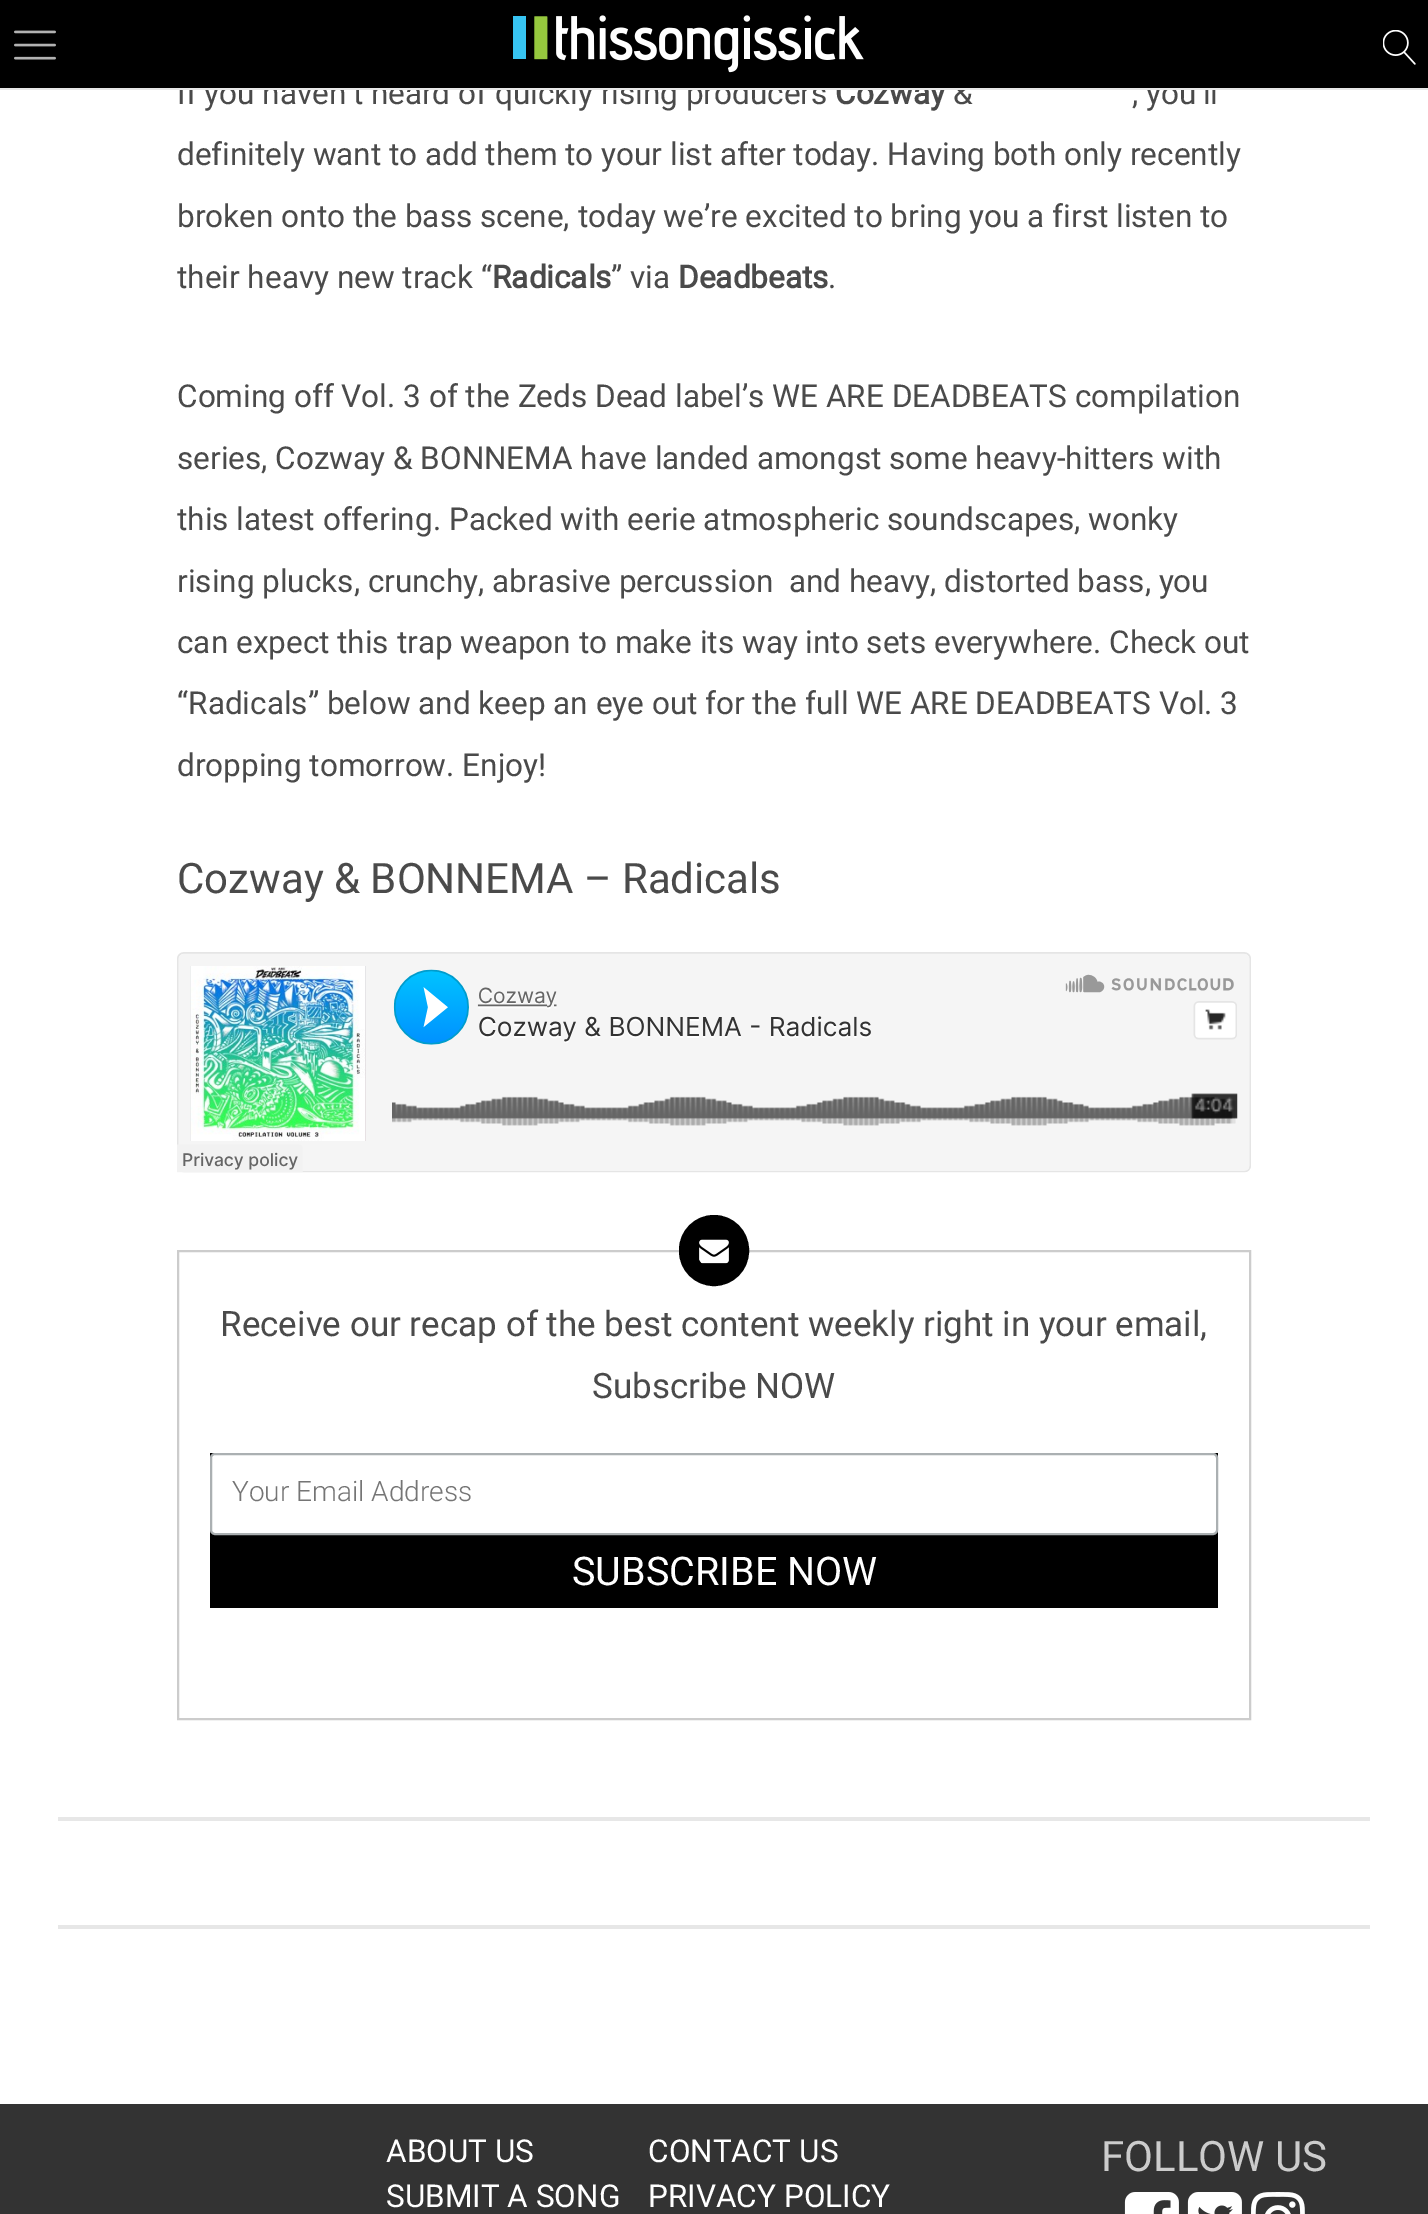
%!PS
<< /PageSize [1428 2214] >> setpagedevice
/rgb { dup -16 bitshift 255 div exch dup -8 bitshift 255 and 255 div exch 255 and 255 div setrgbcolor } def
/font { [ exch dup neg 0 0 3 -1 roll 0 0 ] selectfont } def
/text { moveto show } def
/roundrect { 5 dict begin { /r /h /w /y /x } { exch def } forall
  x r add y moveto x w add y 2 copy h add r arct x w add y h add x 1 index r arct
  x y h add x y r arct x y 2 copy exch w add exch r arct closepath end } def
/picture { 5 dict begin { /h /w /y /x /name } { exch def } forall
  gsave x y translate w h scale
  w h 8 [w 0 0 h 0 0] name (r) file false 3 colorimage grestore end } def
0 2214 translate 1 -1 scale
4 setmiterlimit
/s1 { /Roboto-Regular 31.5 font 16#4A4A4A rgb } def
/s2 { /Roboto-Bold 31.5 font 16#4A4A4A rgb } def
/s3 { /Roboto-Regular 42 font 16#4A4A4A rgb } def
/s4 { /Roboto-Regular 35 font 16#4A4A4A rgb } def
/s5 { /Roboto-Light 28 font 16#757575 rgb } def
/s6 { /Roboto-Regular 39.5 font 16#FFFFFF rgb } def
/s7 { /Roboto-Regular 31.5 font 16#FFFFFF rgb } def
/s8 { /Roboto-Regular 42 font 16#CCCCCC rgb } def
16#FFFFFF rgb
0 0 1428 2214 rectfill
s1
(If you haven’t heard of quickly rising producers) 177 104 text
s2
(Cozway) 835 104 text
s1
(&) 953 104 text
(, you’ll) 1132 104 text
16#000000 rgb
0 0 1428 88 rectfill
16#E7E7E7 rgb
0 88 1428 2 rectfill
(pic1.raw) 14 30 42 30 picture
(pic2.raw) 513 15 351 58 picture
(pic3.raw) 1383 30 33 35 picture
58 1817 1312 4 rectfill
s1
(definitely want to add them to your list after today. Having both only recently) 177 165 text
(broken onto the bass scene, today we’re excited to bring you a first listen to) 177 227 text
(their heavy new track “) 177 288 text
s2
(Radicals) 492 288 text
s1
(” via) 611 288 text
s2
(Deadbeats) 678 288 text
s1
(.) 828 288 text
(Coming off Vol. 3 of the Zeds Dead label’s WE ARE DEADBEATS compilation) 177 407 text
(series, Cozway & BONNEMA have landed amongst some heavy-hitters with) 177 469 text
(this latest offering. Packed with eerie atmospheric soundscapes, wonky) 177 530 text
(rising plucks, crunchy, abrasive percussion  and heavy, distorted bass, you) 177 592 text
(can expect this trap weapon to make its way into sets everywhere. Check out) 177 653 text
(“Radicals” below and keep an eye out for the full WE ARE DEADBEATS Vol. 3) 177 714 text
(dropping tomorrow. Enjoy!) 177 776 text
s3
(Cozway & BONNEMA – Radicals) 177 893 text
(pic4.raw) 177 952 1074 221 picture
16#CCCCCC rgb
2 setlinewidth
178 1251 1072 468 rectstroke
16#000000 rgb
688 1224 52 53 26 roundrect gsave fill grestore
18 setlinewidth
stroke
(pic5.raw) 699 1239 30 25 picture
s4
(Receive our recap of the best content weekly right in your email,) 220 1336 text
(Subscribe NOW) 592 1398 text
16#000000 rgb
210 1453 1008 155 rectfill
16#FFFFFF rgb
211 1454 1006 80 4 roundrect gsave fill grestore
16#ABB0B2 rgb
2 setlinewidth
stroke
s5
(Your Email Address) 232 1501 text
s6
(SUBSCRIBE NOW) 572 1585 text
16#E7E7E7 rgb
58 1925 1312 4 rectfill
16#333333 rgb
0 2104 1428 110 rectfill
s7
(ABOUT US) 386 2162 text
(CONTACT US) 648 2162 text
(SUBMIT A SONG) 386 2207 text
(PRIVACY POLICY) 648 2207 text
s8
(FOLLOW US) 1101 2171 text
(pic6.raw) 1124 2192 55 22 picture
(pic7.raw) 1187 2192 55 22 picture
(pic8.raw) 1251 2192 54 22 picture
showpage
